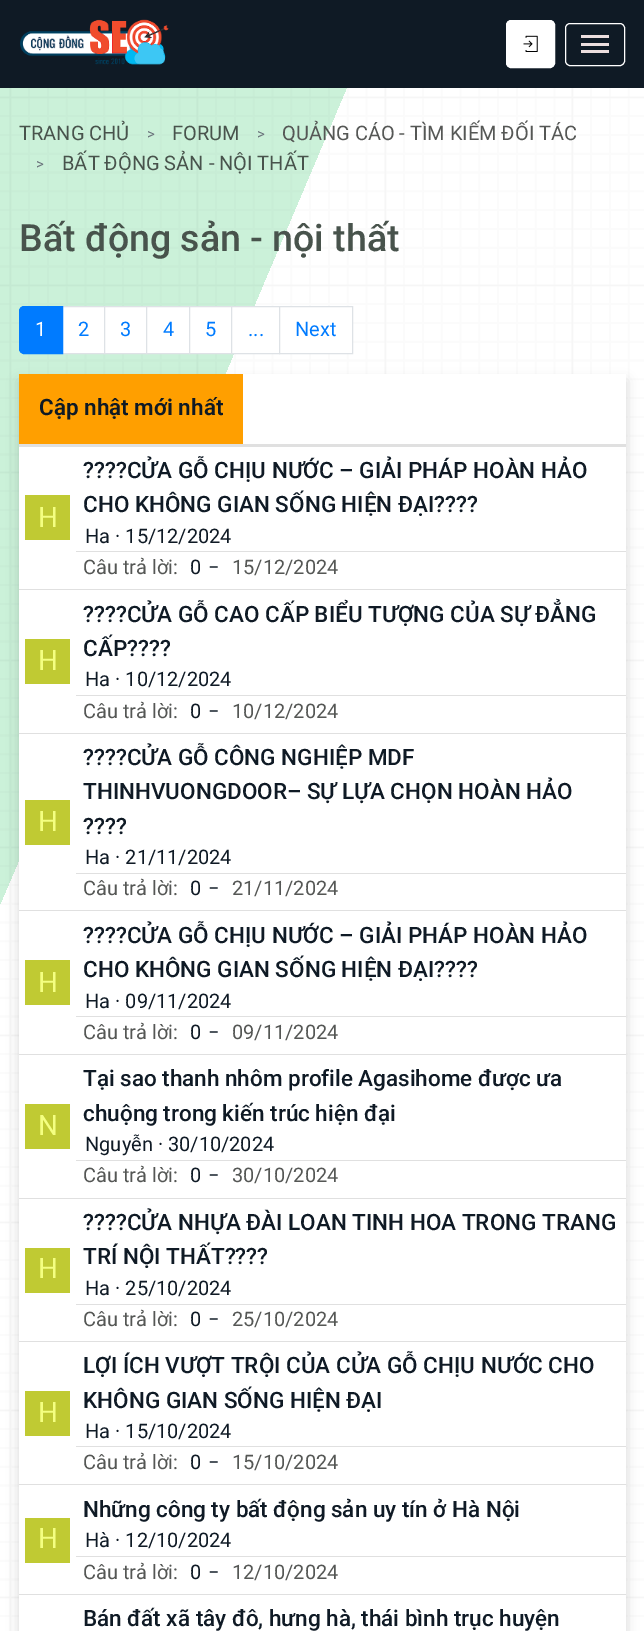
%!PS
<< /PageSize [644 1631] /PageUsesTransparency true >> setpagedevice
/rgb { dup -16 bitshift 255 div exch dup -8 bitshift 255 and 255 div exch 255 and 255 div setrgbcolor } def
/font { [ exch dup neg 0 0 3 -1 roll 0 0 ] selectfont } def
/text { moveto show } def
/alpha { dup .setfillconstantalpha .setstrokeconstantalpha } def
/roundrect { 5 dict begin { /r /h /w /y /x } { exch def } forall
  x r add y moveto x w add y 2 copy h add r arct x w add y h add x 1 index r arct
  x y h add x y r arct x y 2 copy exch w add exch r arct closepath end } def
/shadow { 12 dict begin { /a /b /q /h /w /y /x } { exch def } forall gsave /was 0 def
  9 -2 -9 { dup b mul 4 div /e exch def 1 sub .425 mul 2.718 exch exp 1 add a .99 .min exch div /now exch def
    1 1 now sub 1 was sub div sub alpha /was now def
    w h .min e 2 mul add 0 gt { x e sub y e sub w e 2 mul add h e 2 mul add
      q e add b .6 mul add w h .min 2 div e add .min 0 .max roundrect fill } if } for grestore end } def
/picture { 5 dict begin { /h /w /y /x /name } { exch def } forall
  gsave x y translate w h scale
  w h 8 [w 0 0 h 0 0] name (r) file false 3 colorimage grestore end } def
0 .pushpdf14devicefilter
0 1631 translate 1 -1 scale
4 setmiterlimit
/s1 { /Roboto-Regular 20 font 16#48534C rgb } def
/s2 { /Roboto-Regular 15 font 16#6C757D rgb } def
/s3 { /Roboto-Regular 20 font 16#555755 rgb } def
/s4 { /Roboto-Medium 37.5 font 16#48534C rgb } def
/s5 { /Roboto-Regular 20 font 16#FFFFFF rgb } def
/s6 { /Roboto-Regular 20 font 16#007BFF rgb } def
/s7 { /Roboto-SemiBold 22.5 font 16#0F1A25 rgb } def
/s8 { /Roboto-Regular 28 font 16#F4FF81 rgb } def
/s9 { /Roboto-Medium 22.5 font 16#0F1A25 rgb } def
/s10 { /Roboto-Regular 20 font 16#0F1A25 rgb } def
16#FFFFFF rgb
0 0 644 1631 rectfill
16#0F1A25 rgb
0 0 644 88 rectfill
(pic1.raw) 20 19 149 46 picture
16#FFFFFF rgb
506.5 20.5 48 47 4.5 roundrect gsave fill grestore
stroke
(pic2.raw) 523 35 15 17 picture
565.5 23.5 59 42 4.5 roundrect stroke
16#ECDEDE rgb
581 35 28 3 rectfill
581 43 28 3 rectfill
581 50 28 3 rectfill
gsave 0 88 moveto 347 88 lineto 347 904 lineto 0 904 lineto closepath clip newpath
<< /ShadingType 2 /ColorSpace /DeviceRGB /Coords [-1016 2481 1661 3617] /Extend [true true] /Function << /FunctionType 3 /Domain [0 1] /Functions [<< /FunctionType 2 /Domain [0 1] /C0 [0.796 0.945 0.851] /C1 [0.796 0.945 0.851] /N 1 >> << /FunctionType 2 /Domain [0 1] /C0 [1 1 1] /C1 [1 1 1] /N 1 >>] /Bounds [0.11] /Encode [0 1 0 1] >> >> shfill grestore
(pic3.raw) 0 88 644 1543 picture
s1
(TRANG CHỦ) 19 140 text
s2
(>) 147 139 text
s1
(FORUM) 172 140 text
s2
(>) 257 139 text
s3
(QUẢNG CÁO - TÌM KIẾM ĐỐI TÁC) 282 140 text
s2
(>) 36 169 text
s1
(BẤT ĐỘNG SẢN - NỘI THẤT) 62 170 text
s4
(Bất động sản - nội thất) 19 251 text
16#FFFFFF rgb
63 307 41 46 rectfill
16#DEE2E6 rgb
61.5 306.5 43 47 rectstroke
16#007BFF rgb
24 306.5 moveto 62.5 306.5 lineto 62.5 353.5 lineto 24 353.5 lineto 21.5 353.5 19.5 351.5 19.5 349 curveto 19.5 311 lineto 19.5 308.5 21.5 306.5 24 306.5 curveto closepath gsave fill grestore
stroke
s5
(1) 35 336 text
s6
(2) 78 336 text
16#FFFFFF rgb
105 307 41 46 rectfill
16#DEE2E6 rgb
104.5 306.5 43 47 rectstroke
s6
(3) 120 336 text
16#FFFFFF rgb
146.5 306.5 moveto 189.5 306.5 lineto 189.5 353.5 lineto 146.5 353.5 lineto closepath gsave fill grestore
16#DEE2E6 rgb
stroke
s6
(4) 163 336 text
16#FFFFFF rgb
190 307 41 46 rectfill
16#DEE2E6 rgb
189.5 306.5 43 47 rectstroke
s6
(5) 205 336 text
16#FFFFFF rgb
231.5 306.5 moveto 279.5 306.5 lineto 279.5 353.5 lineto 231.5 353.5 lineto closepath gsave fill grestore
16#DEE2E6 rgb
stroke
s6
(...) 248 336 text
16#FFFFFF rgb
279.5 306.5 moveto 352.5 306.5 lineto 352.5 353.5 lineto 279.5 353.5 lineto closepath gsave fill grestore
16#DEE2E6 rgb
stroke
s6
(Next) 295 336 text
16#000000 rgb
19 381 607 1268 0 6 0.15 shadow
16#FFFFFF rgb
19 374 607 1257 rectfill
16#E0E0E0 rgb
19 444 607 3 rectfill
16#FF9F00 rgb
19 374 224 70 rectfill
s7
(Cập nhật mới nhất) 39 415 text
16#C0CA33 rgb
25 495 45 45 rectfill
s8
(H) 38 527 text
s9
(????CỬA GỖ CHỊU NƯỚC – GIẢI PHÁP HOÀN HẢO) 83 478 text
(CHO KHÔNG GIAN SỐNG HIỆN ĐẠI????) 83 512 text
s10
(Ha · 15/12/2024) 85 543 text
16#E0E0E0 rgb
76 551 550 1 rectfill
s3
(Câu trả lời:) 83 574 text
s10
(0) 190 574 text
(−) 208 574 text
s3
(15/12/2024) 232 574 text
16#E0E0E0 rgb
19 589 607 1 rectfill
16#C0CA33 rgb
25 639 45 45 rectfill
s8
(H) 38 670 text
s9
(????CỬA GỖ CAO CẤP BIỂU TƯỢNG CỦA SỰ ĐẲNG) 83 622 text
(CẤP????) 83 656 text
s10
(Ha · 10/12/2024) 85 686 text
16#E0E0E0 rgb
76 695 550 1 rectfill
s3
(Câu trả lời:) 83 718 text
s10
(0) 190 718 text
(−) 208 718 text
s3
(10/12/2024) 232 718 text
16#E0E0E0 rgb
19 733 607 1 rectfill
16#C0CA33 rgb
25 800 45 45 rectfill
s8
(H) 38 831 text
s9
(????CỬA GỖ CÔNG NGHIỆP MDF) 83 765 text
(THINHVUONGDOOR– SỰ LỰA CHỌN HOÀN HẢO) 83 799 text
(????) 83 834 text
s10
(Ha · 21/11/2024) 85 864 text
16#E0E0E0 rgb
76 873 550 1 rectfill
s3
(Câu trả lời:) 83 895 text
s10
(0) 190 895 text
(−) 208 895 text
s3
(21/11/2024) 232 895 text
16#E0E0E0 rgb
19 910 607 1 rectfill
16#C0CA33 rgb
25 960 45 45 rectfill
s8
(H) 38 992 text
s9
(????CỬA GỖ CHỊU NƯỚC – GIẢI PHÁP HOÀN HẢO) 83 943 text
(CHO KHÔNG GIAN SỐNG HIỆN ĐẠI????) 83 977 text
s10
(Ha · 09/11/2024) 85 1008 text
16#E0E0E0 rgb
76 1016 550 1 rectfill
s3
(Câu trả lời:) 83 1039 text
s10
(0) 190 1039 text
(−) 208 1039 text
s3
(09/11/2024) 232 1039 text
16#E0E0E0 rgb
19 1054 607 1 rectfill
16#C0CA33 rgb
25 1104 45 45 rectfill
s8
(N) 38 1135 text
s9
(Tại sao thanh nhôm profile Agasihome được ưa) 83 1086 text
(chuộng trong kiến trúc hiện đại) 83 1121 text
s10
(Nguyễn · 30/10/2024) 85 1151 text
16#E0E0E0 rgb
76 1160 550 1 rectfill
s3
(Câu trả lời:) 83 1182 text
s10
(0) 190 1182 text
(−) 208 1182 text
s3
(30/10/2024) 232 1182 text
16#E0E0E0 rgb
19 1198 607 1 rectfill
16#C0CA33 rgb
25 1248 45 45 rectfill
s8
(H) 38 1278 text
s9
(????CỬA NHỰA ĐÀI LOAN TINH HOA TRONG TRANG) 83 1230 text
(TRÍ NỘI THẤT????) 83 1264 text
s10
(Ha · 25/10/2024) 85 1295 text
16#E0E0E0 rgb
76 1304 550 1 rectfill
s3
(Câu trả lời:) 83 1326 text
s10
(0) 190 1326 text
(−) 208 1326 text
s3
(25/10/2024) 232 1326 text
16#E0E0E0 rgb
19 1341 607 1 rectfill
16#C0CA33 rgb
25 1391 45 45 rectfill
s8
(H) 38 1422 text
s9
(LỢI ÍCH VƯỢT TRỘI CỦA CỬA GỖ CHỊU NƯỚC CHO) 83 1373 text
(KHÔNG GIAN SỐNG HIỆN ĐẠI) 83 1408 text
s10
(Ha · 15/10/2024) 85 1438 text
16#E0E0E0 rgb
76 1446 550 1 rectfill
s3
(Câu trả lời:) 83 1469 text
s10
(0) 190 1469 text
(−) 208 1469 text
s3
(15/10/2024) 232 1469 text
16#E0E0E0 rgb
19 1484 607 1 rectfill
16#C0CA33 rgb
25 1518 45 45 rectfill
s8
(H) 38 1548 text
s9
(Những công ty bất động sản uy tín ở Hà Nội) 83 1517 text
s10
(Hà · 12/10/2024) 85 1547 text
16#E0E0E0 rgb
76 1556 550 1 rectfill
s3
(Câu trả lời:) 83 1579 text
s10
(0) 190 1579 text
(−) 208 1579 text
s3
(12/10/2024) 232 1579 text
16#E0E0E0 rgb
19 1594 607 1 rectfill
s9
(Bán đất xã tây đô, hưng hà, thái bình trục huyện) 83 1626 text
.poppdf14devicefilter showpage
